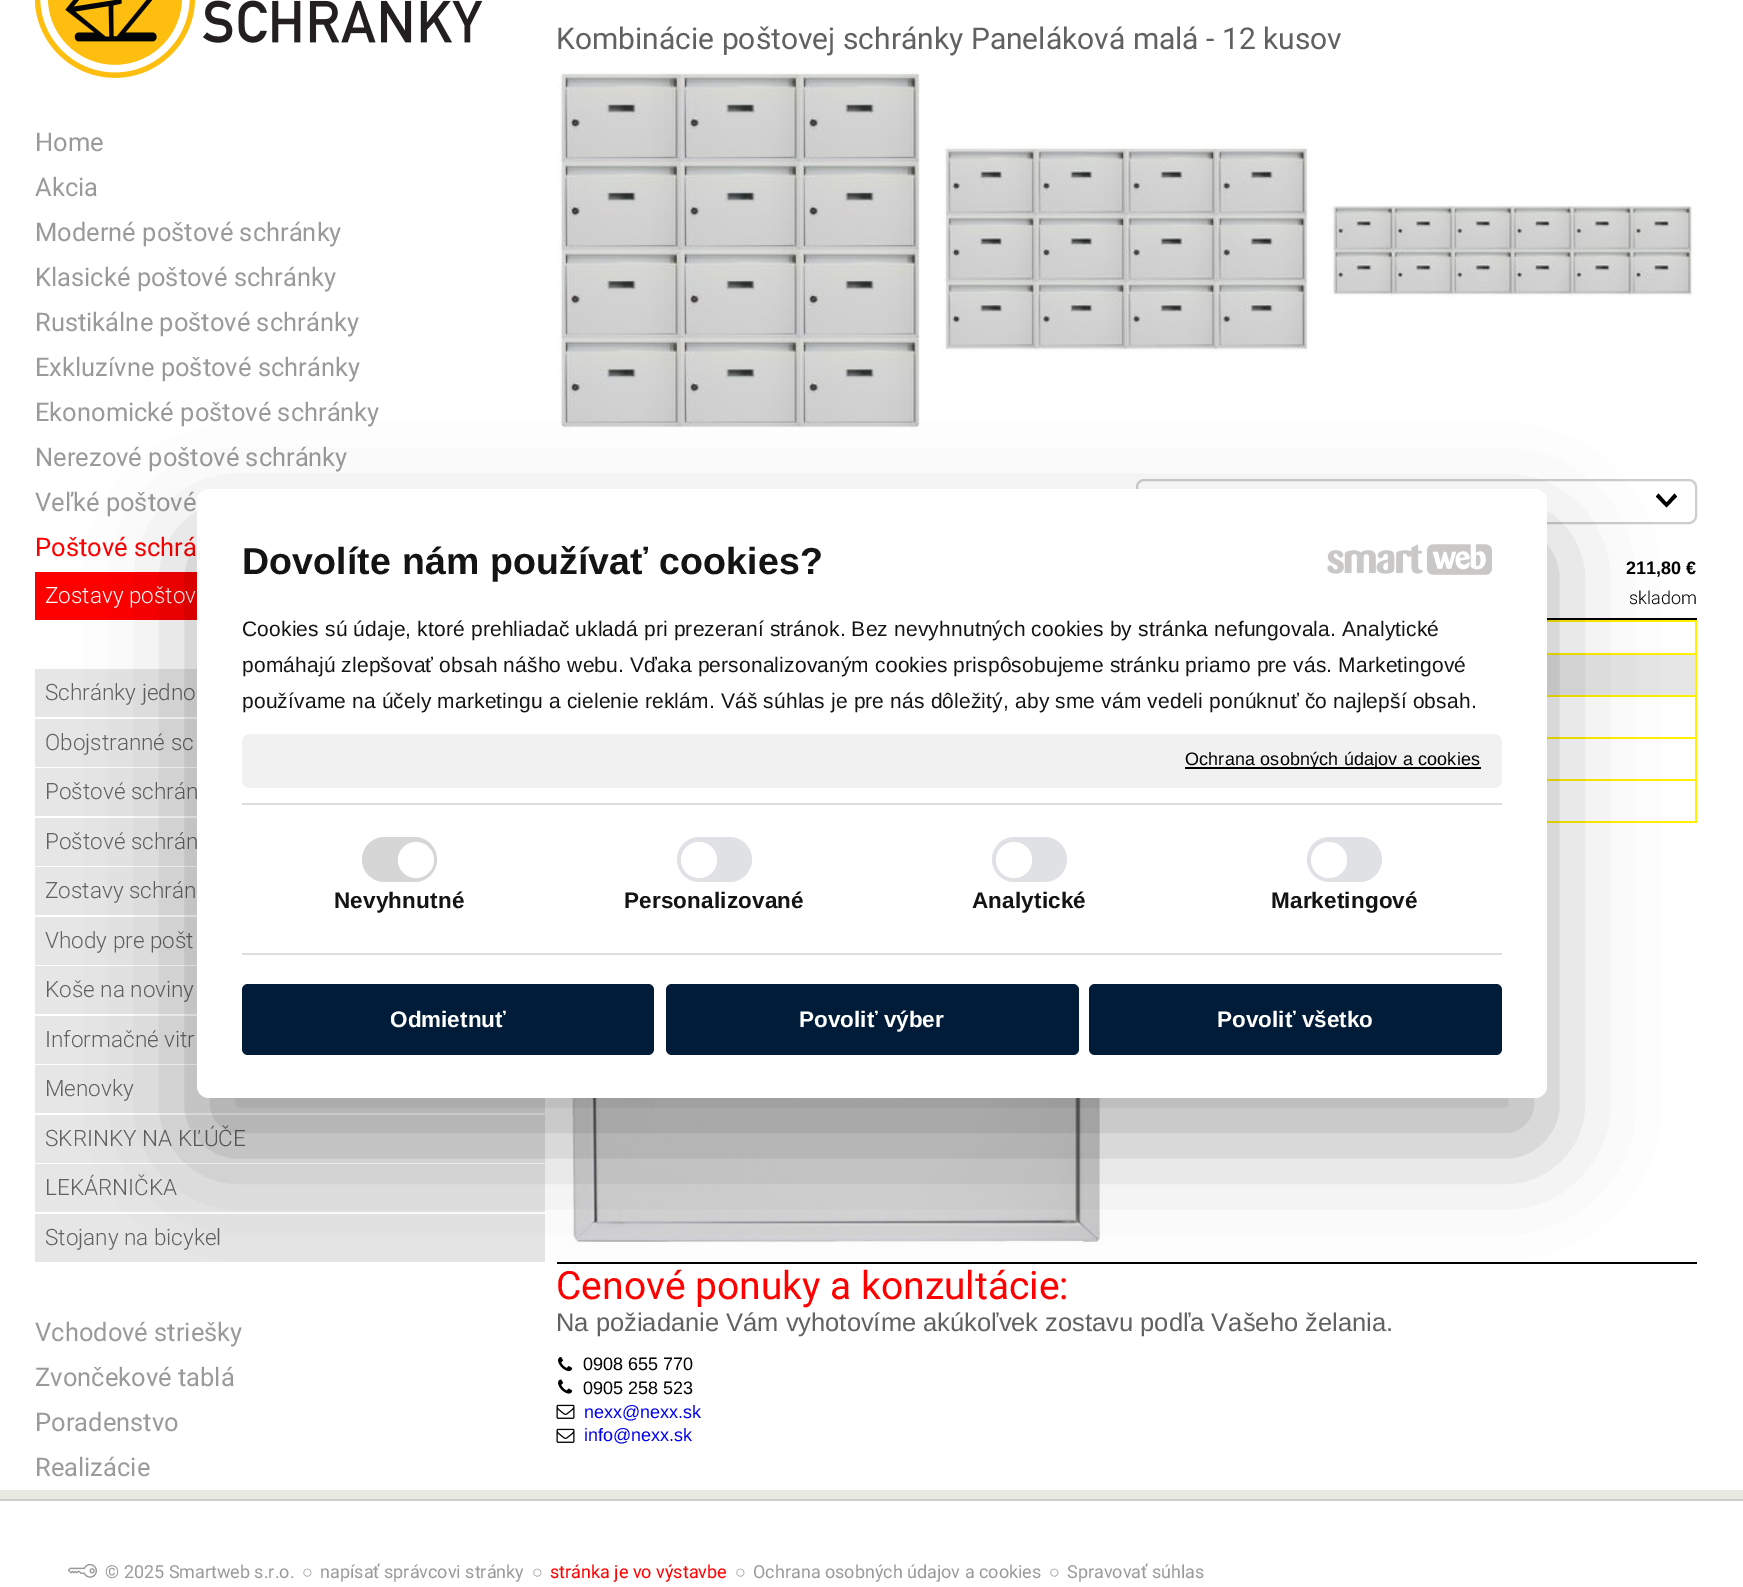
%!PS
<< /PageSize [1743 1587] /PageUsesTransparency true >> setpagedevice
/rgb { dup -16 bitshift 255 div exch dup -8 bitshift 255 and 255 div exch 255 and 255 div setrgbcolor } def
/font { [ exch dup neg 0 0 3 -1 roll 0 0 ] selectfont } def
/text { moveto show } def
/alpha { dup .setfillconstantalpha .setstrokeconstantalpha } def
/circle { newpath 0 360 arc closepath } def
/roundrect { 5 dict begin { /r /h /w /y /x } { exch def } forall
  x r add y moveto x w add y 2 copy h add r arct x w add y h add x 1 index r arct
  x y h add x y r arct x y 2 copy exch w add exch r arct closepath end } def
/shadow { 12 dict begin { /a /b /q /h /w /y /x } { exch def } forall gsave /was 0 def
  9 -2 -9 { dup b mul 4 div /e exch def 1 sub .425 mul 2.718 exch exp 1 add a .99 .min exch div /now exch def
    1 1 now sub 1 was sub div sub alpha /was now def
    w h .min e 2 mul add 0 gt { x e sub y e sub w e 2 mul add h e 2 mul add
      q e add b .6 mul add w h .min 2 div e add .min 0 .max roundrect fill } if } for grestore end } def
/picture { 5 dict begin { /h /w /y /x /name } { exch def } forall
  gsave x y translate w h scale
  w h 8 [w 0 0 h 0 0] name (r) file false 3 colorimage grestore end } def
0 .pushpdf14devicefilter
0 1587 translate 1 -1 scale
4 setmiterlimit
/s1 { /Roboto-Regular 25.5 font 16#9A9A9A rgb } def
/s2 { /Roboto-Regular 25.5 font 16#FF0000 rgb } def
/s3 { /Roboto-Light 22.5 font 16#FFFFFF rgb } def
/s4 { /Roboto-Light 22.5 font 16#616161 rgb } def
/s5 { /Roboto-Regular 30 font 16#616161 rgb } def
/s6 { /LiberationSans-Bold 18 font 16#000000 rgb } def
/s7 { /Roboto-Light 18 font 16#000000 rgb } def
/s8 { /Roboto-Regular 39 font 16#FF0000 rgb } def
/s9 { /LiberationSans-Regular 25.5 font 16#616161 rgb } def
/s10 { /LiberationSans-Regular 18 font 16#000000 rgb } def
/s11 { /LiberationSans-Regular 18 font 16#0000EE rgb } def
/s12 { /LiberationSans-Bold 22.5 font 16#FFFFFF rgb } def
/s13 { /Roboto-Regular 18 font 16#9A9A9A rgb } def
/s14 { /LiberationSans-Regular 18 font 16#9A9A9A rgb } def
/s15 { /Roboto-Regular 18 font 16#FF0000 rgb } def
16#E8E9E0 rgb
0 0 1743 1587 rectfill
16#FFFFFF rgb
0 0 1743 1490 rectfill
(pic1.raw) 35 0 448 78 picture
s1
(Home) 35 151 text
(Akcia) 35 196 text
(Moderné poštové schránky) 35 241 text
(Klasické poštové schránky) 35 286 text
(Rustikálne poštové schránky) 35 331 text
(Exkluzívne poštové schránky) 35 376 text
(Ekonomické poštové schránky) 35 421 text
(Nerezové poštové schránky) 35 466 text
(Veľké poštové) 35 511 text
s2
(Poštové schrá) 35 556 text
35 572 162 48 rectfill
s3
(Zostavy poštov) 45 603 text
16#E6E6E6 rgb
35 669 162 48 rectfill
s4
(Schránky jedno) 45 700 text
16#E6E6E6 rgb
35 719 162 48 rectfill
s4
(Obojstranné sc) 45 750 text
16#E6E6E6 rgb
35 768 162 48 rectfill
s4
(Poštové schrán) 45 799 text
16#E6E6E6 rgb
35 818 162 48 rectfill
s4
(Poštové schrán) 45 849 text
16#E6E6E6 rgb
35 867 162 48 rectfill
s4
(Zostavy schrán) 45 898 text
16#E6E6E6 rgb
35 917 162 48 rectfill
s4
(Vhody pre pošt) 45 948 text
16#E6E6E6 rgb
35 966 162 48 rectfill
s4
(Koše na noviny) 45 997 text
16#E6E6E6 rgb
35 1016 162 48 rectfill
s4
(Informačné vitr) 45 1047 text
16#E6E6E6 rgb
35 1065 510 48 rectfill
s4
(Menovky) 45 1096 text
16#E6E6E6 rgb
35 1115 510 48 rectfill
s4
(SKRINKY NA KĽÚČE) 45 1146 text
16#E6E6E6 rgb
35 1164 510 48 rectfill
s4
(LEKÁRNIČKA) 45 1195 text
16#E6E6E6 rgb
35 1214 510 48 rectfill
s4
(Stojany na bicykel) 45 1245 text
s1
(Vchodové striešky) 35 1341 text
(Zvončekové tablá) 35 1386 text
(Poradenstvo) 35 1431 text
(Realizácie) 35 1476 text
s5
(Kombinácie poštovej schránky Paneláková malá - 12 kusov) 556 49 text
(pic2.raw) 557 70 363 359 picture
(pic3.raw) 942 145 366 207 picture
(pic4.raw) 1329 205 364 92 picture
16#CDCDCD rgb
2 setlinewidth
1137 480 559 43 7 roundrect stroke
16#000000 rgb
1658.5 493.5 moveto 1666.5 502.5 lineto 1674.5 493.5 lineto 1677 496.5 lineto 1666.5 507.5 lineto 1656 496.5 lineto closepath fill
s6
(211,80 €) 1626 574 text
s7
(skladom) 1629 604 text
1547 618 150 2 rectfill
16#FFEF00 rgb
1547 620 150 2 rectfill
1695 620 2 202 rectfill
1547 821 150 2 rectfill
16#E6E6E6 rgb
1547 655 148 40 rectfill
16#FFEF00 rgb
1547 653 150 2 rectfill
1547 695 150 2 rectfill
1547 737 150 2 rectfill
1547 779 150 2 rectfill
(pic5.raw) 570 1098 534 148 picture
16#000000 rgb
557 1262 1140 2 rectfill
s8
(Cenové ponuky a konzultácie:) 556 1299 text
s9
(Na požiadanie Vám vyhotovíme akúkoľvek zostavu podľa Vašeho želania.) 556 1331 text
(pic6.raw) 558 1357 15 15 picture
s10
(0908 655 770) 583 1370 text
(pic7.raw) 558 1379 15 15 picture
(0905 258 523) 583 1394 text
(pic8.raw) 556 1404 19 15 picture
s11
(nexx@nexx.sk) 584 1418 text
(pic8.raw) 556 1428 19 15 picture
(info@nexx.sk) 584 1441 text
16#000000 rgb
197 537 1350 609 12 51 0.3 shadow
16#FFFFFF rgb
197 489 1350 609 12 roundrect fill
/LiberationSans-Bold 37.5 font
16#141414 rgb
242 574 moveto 0.15 0 (Dovolíte nám používať cookies?) ashow
(pic9.raw) 1327 544 96 30 picture
(pic10.raw) 1426 544 66 31 picture
/LiberationSans-Regular 21 font
242 636 moveto 0.15 0 (Cookies sú údaje, ktoré prehliadač ukladá pri prezeraní stránok. Bez nevyhnutných cookies by stránka nefungovala. Analytické) ashow
242 672 moveto 0.15 0 (pomáhajú zlepšovať obsah nášho webu. Vďaka personalizovaným cookies prispôsobujeme stránku priamo pre vás. Marketingové) ashow
242 708 moveto 0.15 0 (používame na účely marketingu a cielenie reklám. Váš súhlas je pre nás dôležitý, aby sme vám vedeli ponúknuť čo najlepší obsah.) ashow
16#F1F1F1 rgb
242 734 1260 54 8 roundrect fill
16#000000 rgb
1185 767 296 2 rectfill
/LiberationSans-Regular 18 font
1185 765 moveto 0.15 0 (Ochrana osobných údajov a cookies) ashow
16#DDDDDD rgb
242 803 1260 2 rectfill
242 953 1260 2 rectfill
16#D6D6D6 rgb
362 837 75 45 22.5 roundrect fill
16#FFFFFF rgb
416 860 18 circle fill
/LiberationSans-Bold 22.5 font
16#141414 rgb
334 908 moveto 0.15 0 (Nevyhnutné) ashow
16#DFE1E4 rgb
677 837 75 45 22.5 roundrect fill
16#FFFFFF rgb
699 860 18 circle fill
16#141414 rgb
624 908 moveto 0.15 0 (Personalizované) ashow
16#DFE1E4 rgb
992 837 75 45 22.5 roundrect fill
16#FFFFFF rgb
1014 860 18 circle fill
16#141414 rgb
972 908 moveto 0.15 0 (Analytické) ashow
16#DFE1E4 rgb
1307 837 75 45 22.5 roundrect fill
16#FFFFFF rgb
1329 860 18 circle fill
16#141414 rgb
1271 908 moveto 0.15 0 (Marketingové) ashow
16#011C38 rgb
242 984 412 71 6 roundrect fill
s12
(Odmietnuť) 390 1027 text
16#011C38 rgb
666 984 413 71 6 roundrect fill
s12
(Povoliť výber) 799 1027 text
16#011C38 rgb
1089 984 413 71 6 roundrect fill
s12
(Povoliť všetko) 1217 1027 text
0 1501 1743 86 rectfill
16#CDCDCD rgb
0 1499 1743 2 rectfill
(pic11.raw) 68 1563 29 15 picture
s13
(© 2025 Smartweb s.r.o.) 105 1578 text
s14
(○) 302 1578 text
s13
(napísať správcovi stránky) 320 1578 text
s14
(○) 532 1578 text
s15
(stránka je vo výstavbe) 550 1578 text
s14
(○) 735 1578 text
s13
(Ochrana osobných údajov a cookies) 753 1578 text
s14
(○) 1049 1578 text
s13
(Spravovať súhlas) 1067 1578 text
.poppdf14devicefilter showpage
